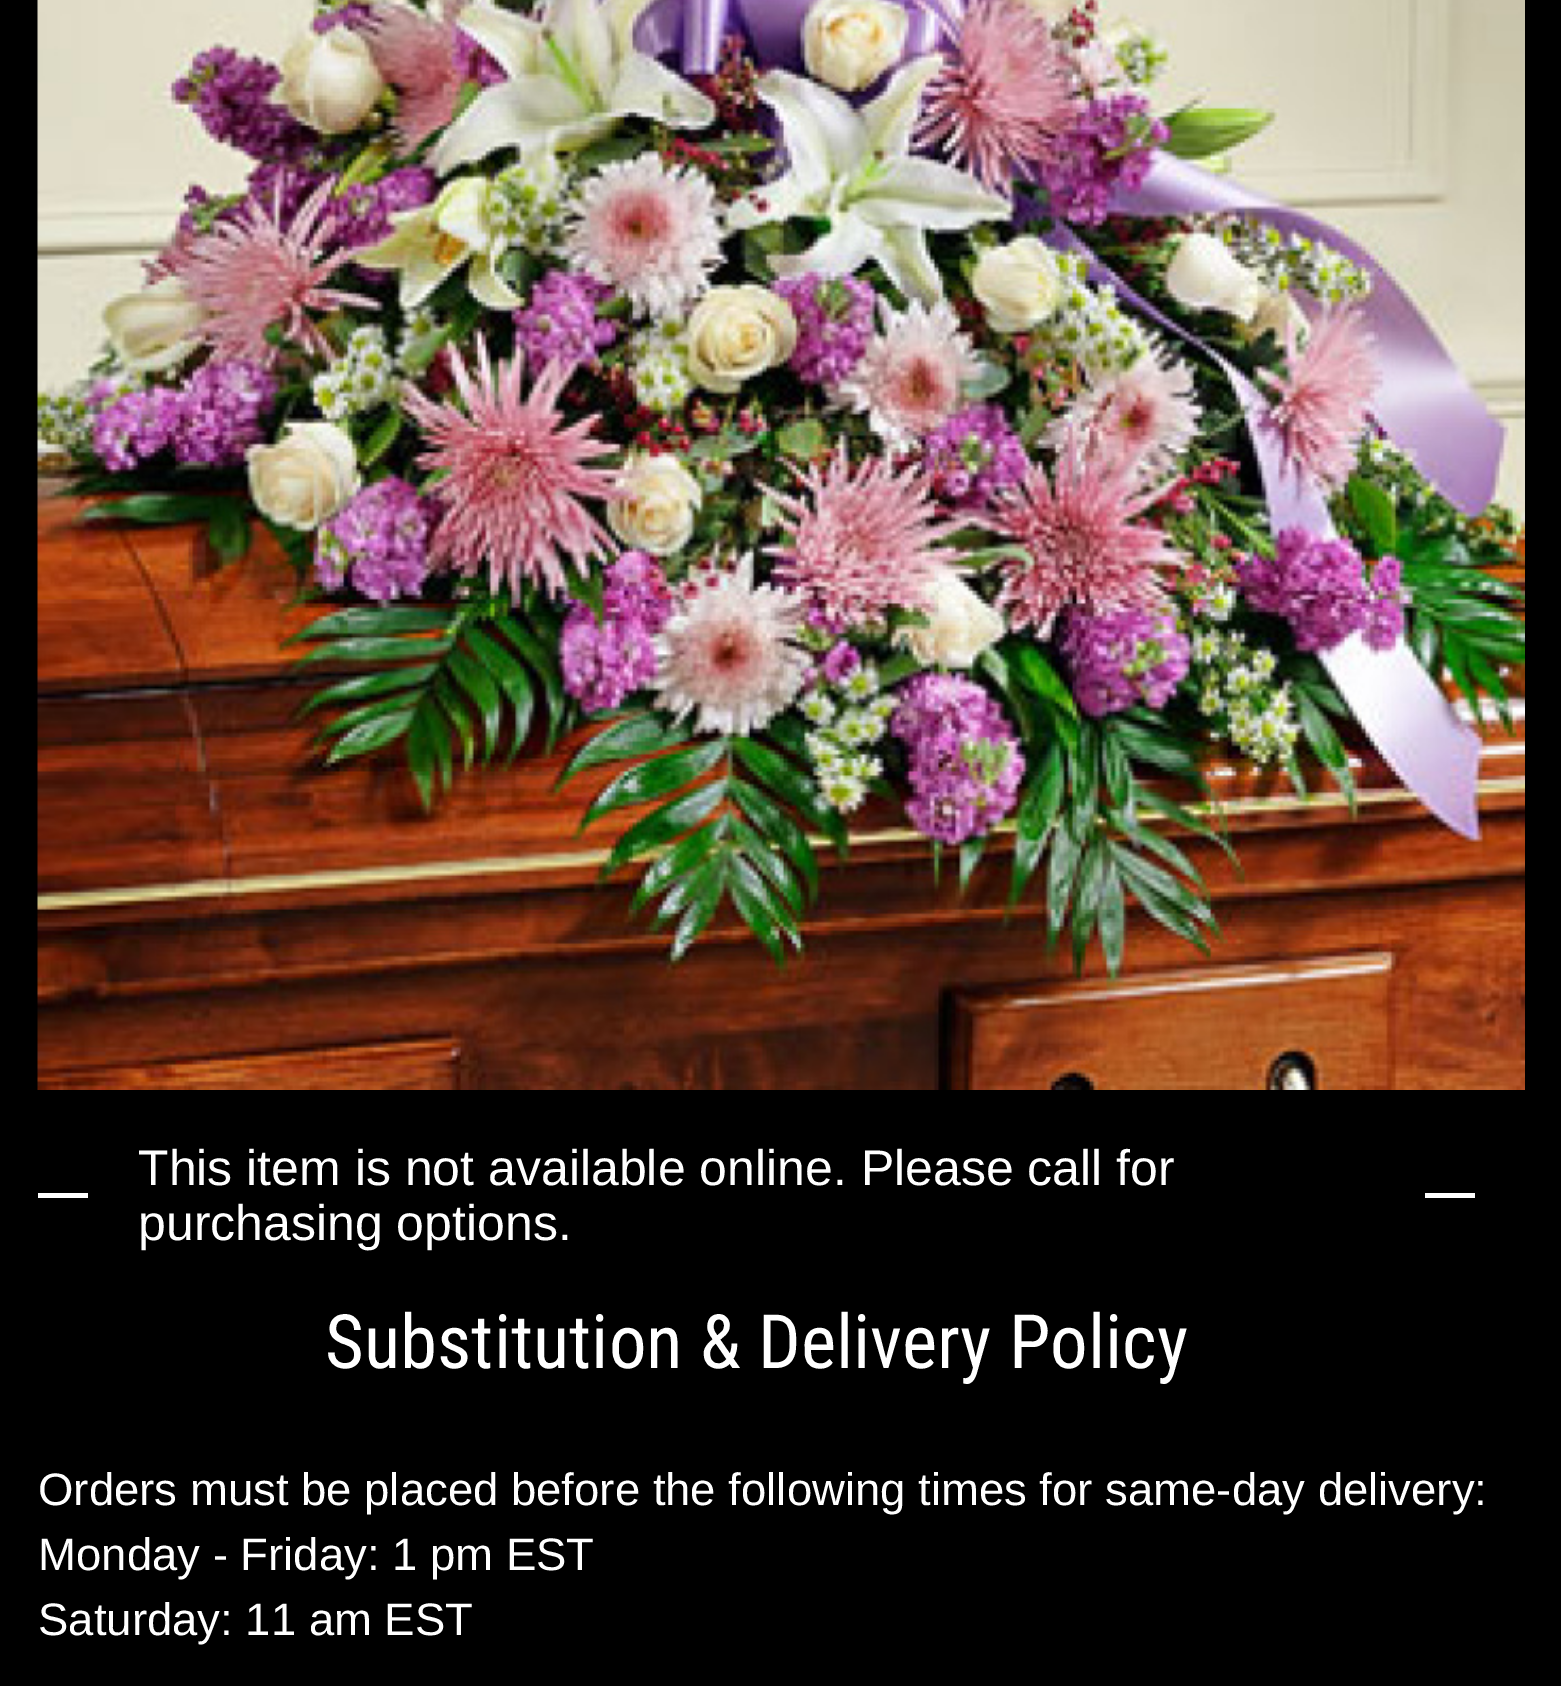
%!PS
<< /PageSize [1561 1686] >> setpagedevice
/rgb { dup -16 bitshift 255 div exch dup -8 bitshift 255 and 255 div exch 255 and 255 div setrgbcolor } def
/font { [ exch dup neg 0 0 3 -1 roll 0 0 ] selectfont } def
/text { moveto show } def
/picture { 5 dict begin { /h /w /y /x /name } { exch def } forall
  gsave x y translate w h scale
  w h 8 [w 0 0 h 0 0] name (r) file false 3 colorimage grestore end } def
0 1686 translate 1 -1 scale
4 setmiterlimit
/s1 { /LiberationSans-Regular 50 font 16#FFFFFF rgb } def
/s2 { /RobotoCondensed-Regular 75 font 16#FFFFFF rgb } def
/s3 { /LiberationSans-Regular 45.5 font 16#FFFFFF rgb } def
16#000000 rgb
0 0 1561 1686 rectfill
(pic1.raw) 37 0 1488 1090 picture
s1
(This item is not available online. Please call for) 138 1185 text
38 1193 50 5 rectfill
1425 1193 50 5 rectfill
(purchasing options.) 138 1240 text
s2
(Substitution & Delivery Policy) 325 1368 text
s3
(Orders must be placed before the following times for same-day delivery:) 38 1505 text
(Monday - Friday: 1 pm EST) 38 1570 text
(Saturday: 11 am EST) 38 1635 text
showpage
